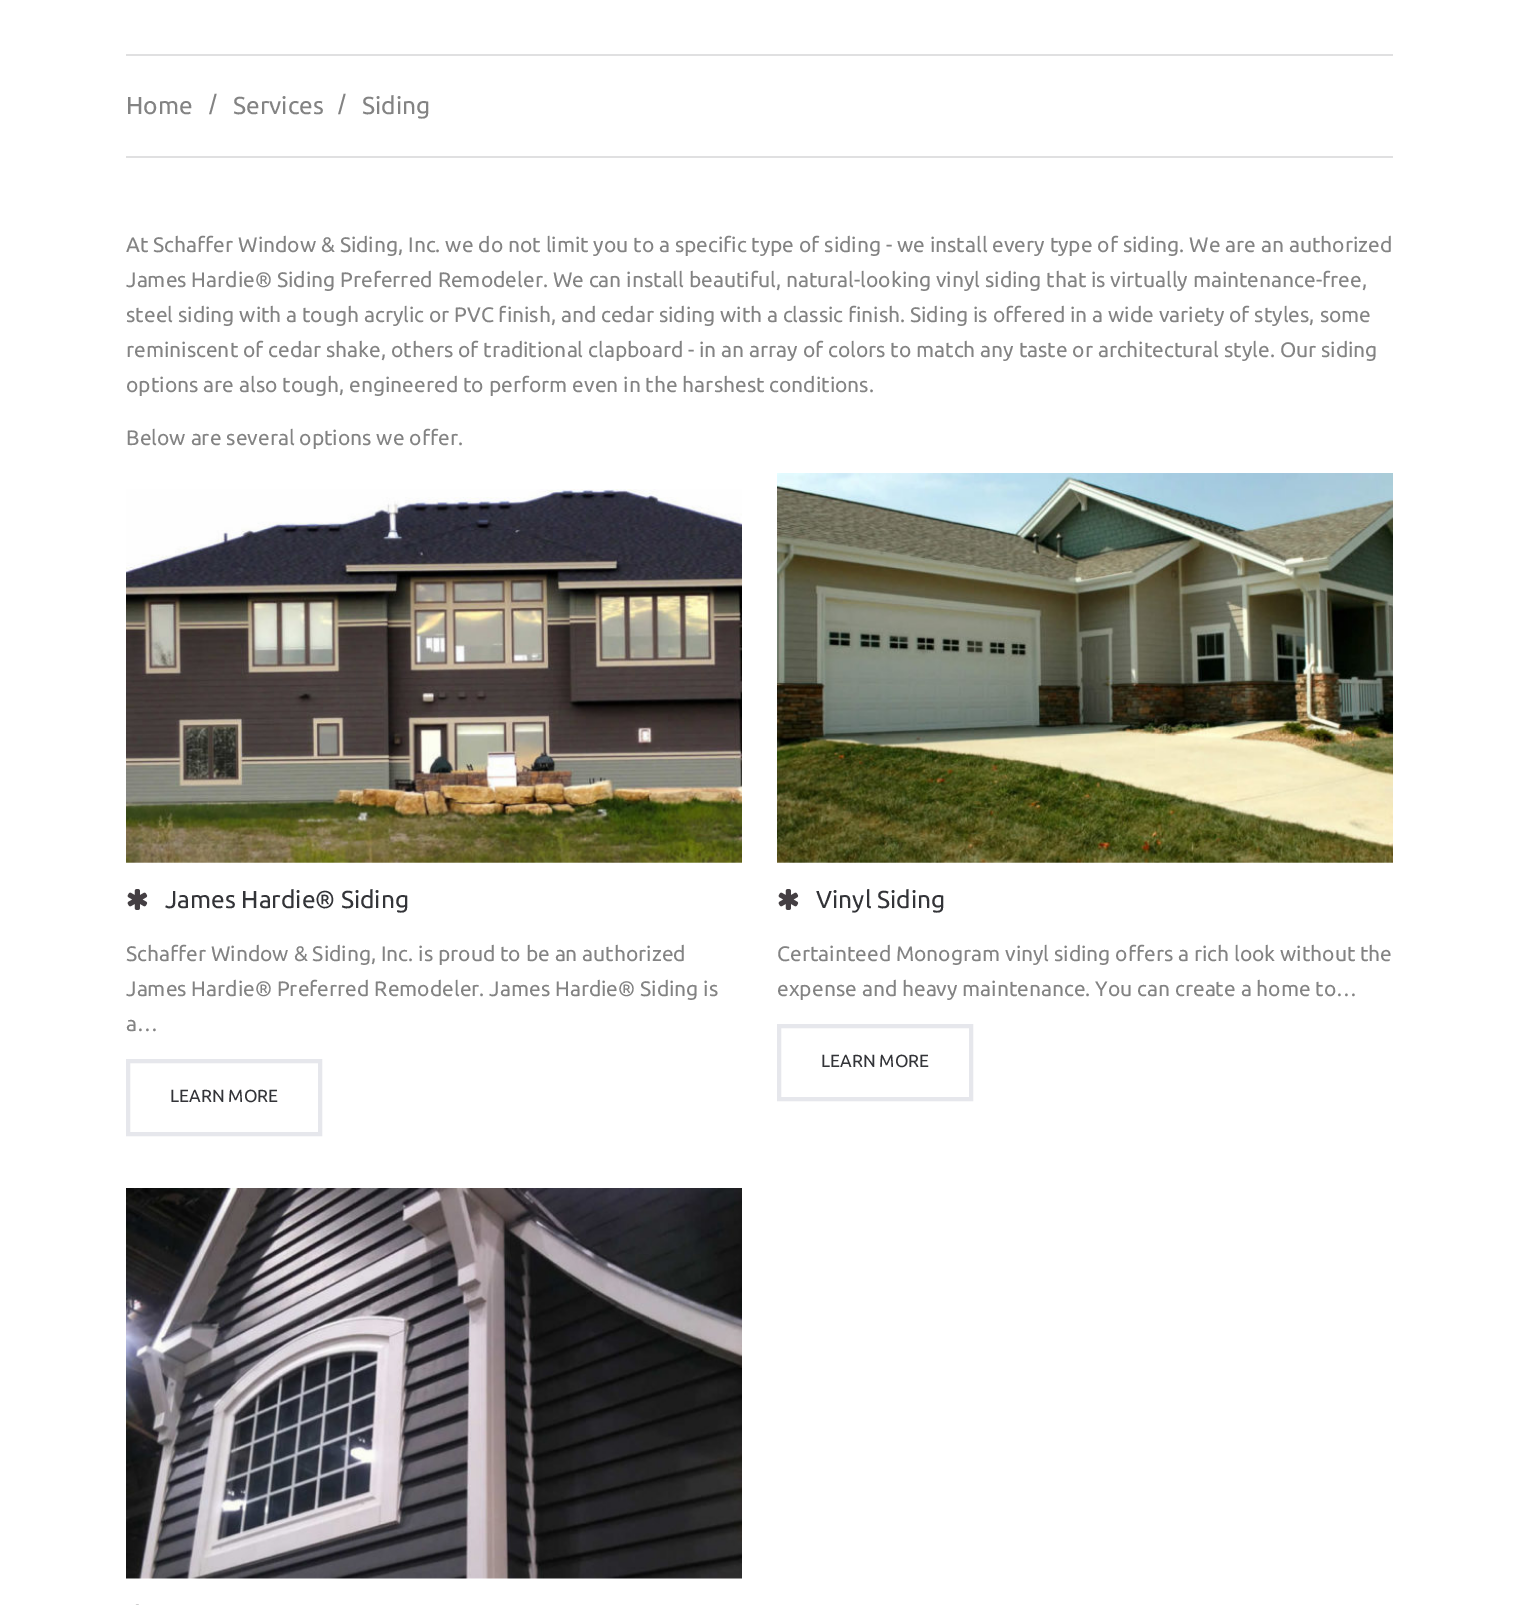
%!PS
<< /PageSize [1519 1605] >> setpagedevice
/rgb { dup -16 bitshift 255 div exch dup -8 bitshift 255 and 255 div exch 255 and 255 div setrgbcolor } def
/font { [ exch dup neg 0 0 3 -1 roll 0 0 ] selectfont } def
/text { moveto show } def
/picture { 5 dict begin { /h /w /y /x /name } { exch def } forall
  gsave x y translate w h scale
  w h 8 [w 0 0 h 0 0] name (r) file false 3 colorimage grestore end } def
0 1605 translate 1 -1 scale
4 setmiterlimit
/s1 { /Ubuntu-Regular 24.5 font 16#838383 rgb } def
/s2 { /LiberationSans-Regular 28 font 16#838383 rgb } def
/s3 { /Ubuntu-Regular 21 font 16#838383 rgb } def
/s4 { /Ubuntu-Regular 24.5 font 16#333438 rgb } def
/s5 { /Ubuntu-Regular 17.5 font 16#333438 rgb } def
16#FFFFFF rgb
0 0 1519 1605 rectfill
16#E0E0E1 rgb
126 54 1267 2 rectfill
126 156 1267 2 rectfill
s1
(Home) 126 114 text
s2
(/) 209 114 text
s1
(Services) 233 114 text
s2
(/) 338 114 text
s1
(Siding) 362 114 text
s3
(At Schaffer Window & Siding, Inc. we do not limit you to a specific type of siding - we install every type of siding. We are an authorized) 126 252 text
(James Hardie® Siding Preferred Remodeler. We can install beautiful, natural-looking vinyl siding that is virtually maintenance-free,) 126 287 text
(steel siding with a tough acrylic or PVC finish, and cedar siding with a classic finish. Siding is offered in a wide variety of styles, some) 126 322 text
(reminiscent of cedar shake, others of traditional clapboard - in an array of colors to match any taste or architectural style. Our siding) 126 357 text
(options are also tough, engineered to perform even in the harshest conditions.) 126 392 text
(Below are several options we offer.) 126 445 text
(pic1.raw) 126 489 616 374 picture
(pic2.raw) 127 889 21 21 picture
s4
(James Hardie® Siding) 165 908 text
s3
(Schaffer Window & Siding, Inc. is proud to be an authorized) 126 961 text
(James Hardie® Preferred Remodeler. James Hardie® Siding is) 126 996 text
(a…) 126 1031 text
16#E6E7EC rgb
4 setlinewidth
128 1061 192 73 rectstroke
s5
(LEARN MORE) 170 1102 text
(pic3.raw) 777 473 616 390 picture
(pic2.raw) 778 889 21 21 picture
s4
(Vinyl Siding) 816 908 text
s3
(Certainteed Monogram vinyl siding offers a rich look without the) 777 961 text
(expense and heavy maintenance. You can create a home to…) 777 996 text
16#E6E7EC rgb
779 1026 192 73 rectstroke
s5
(LEARN MORE) 821 1067 text
(pic4.raw) 126 1188 616 391 picture
(pic5.raw) 135 1604 4 1 picture
showpage
